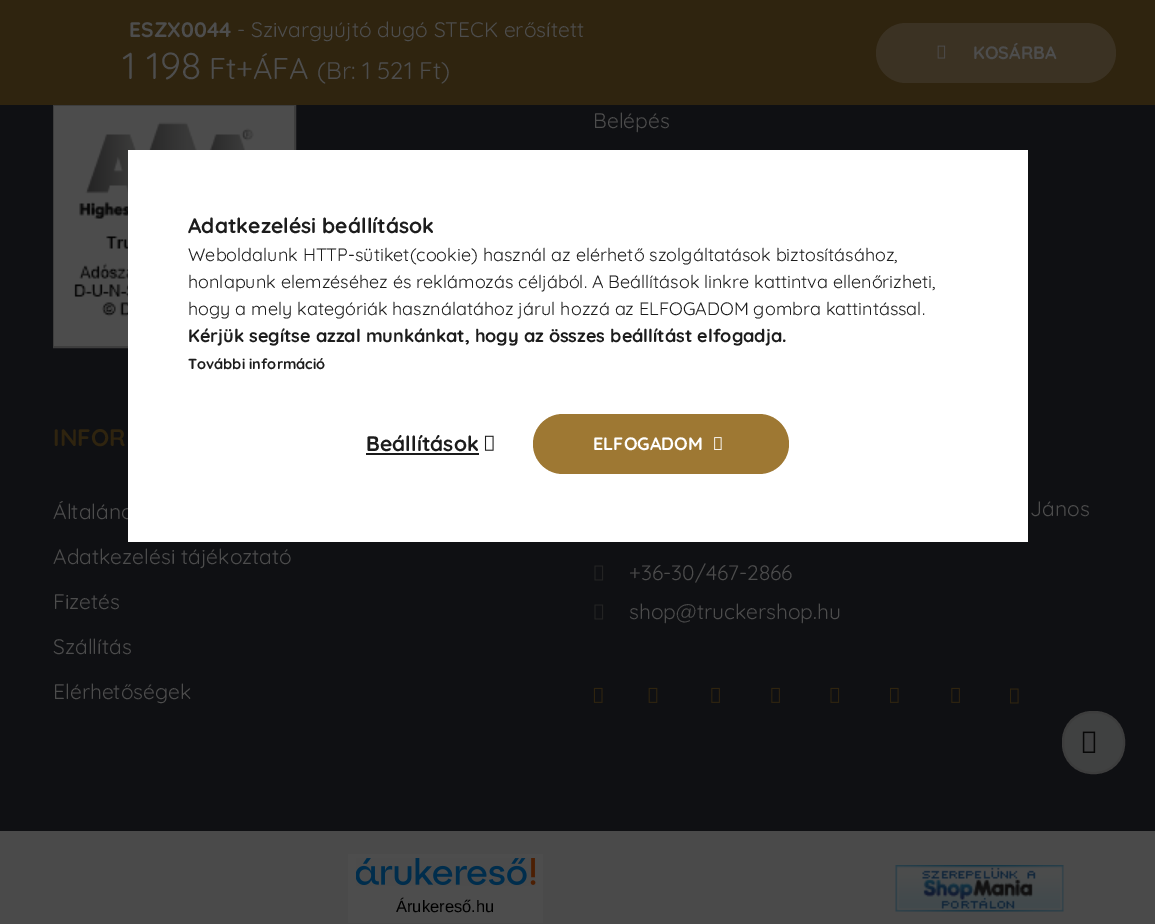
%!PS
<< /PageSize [1155 924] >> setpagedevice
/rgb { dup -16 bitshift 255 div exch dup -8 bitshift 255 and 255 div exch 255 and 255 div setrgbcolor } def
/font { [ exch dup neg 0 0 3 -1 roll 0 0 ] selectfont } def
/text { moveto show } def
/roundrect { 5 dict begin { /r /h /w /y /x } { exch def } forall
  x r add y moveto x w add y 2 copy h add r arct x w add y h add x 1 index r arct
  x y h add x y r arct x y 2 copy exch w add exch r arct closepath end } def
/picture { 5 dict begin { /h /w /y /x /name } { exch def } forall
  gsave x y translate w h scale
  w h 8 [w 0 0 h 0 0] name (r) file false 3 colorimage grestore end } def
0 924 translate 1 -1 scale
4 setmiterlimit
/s1 { /Quicksand-Bold 21 font 16#4D4D4D rgb } def
/s2 { /Quicksand-Regular 21 font 16#4D4D4D rgb } def
/s3 { /Quicksand-Regular 37.5 font 16#4D4D4D rgb } def
/s4 { /Quicksand-Regular 30 font 16#4D4D4D rgb } def
/s5 { /Quicksand-Regular 24 font 16#4D4D4D rgb } def
/s6 { /Quicksand-Bold 18 font 16#4D4D4D rgb } def
/s7 { /Quicksand-Bold 24 font 16#2F240F rgb } def
/s8 { /LiberationSans-Regular 16.5 font 16#000000 rgb } def
/s9 { /Quicksand-Bold 21 font 16#1C1C1C rgb } def
/s10 { /Quicksand-Regular 18 font 16#1C1C1C rgb } def
/s11 { /Quicksand-Bold 18 font 16#1C1C1C rgb } def
/s12 { /Quicksand-Bold 14.5 font 16#1C1C1C rgb } def
/s13 { /Quicksand-Bold 18 font 16#FFFFFF rgb } def
16#4A4A4A rgb
0 0 1155 924 rectfill
16#2F240F rgb
0 0 1155 105 rectfill
s1
(ESZX0044) 129 37 text
s2
(- Szivargyújtó dugó STECK erősített) 237 37 text
s3
(1 198) 122 79 text
s4
(Ft+ÁFA) 209 79 text
s5
(\(Br: 1 521 Ft\)) 317 79 text
16#3B3223 rgb
876 23 240 60 30 roundrect fill
(pic1.raw) 937 45 9 14 picture
s6
(KOSÁRBA) 973 59 text
16#0F1013 rgb
0 105 1155 726 rectfill
16#3D3D3D rgb
2 setlinewidth
54 106 241 241 rectstroke
(pic2.raw) 54 106 240 240 picture
s2
(Belépés) 593 128 text
s7
(INFOR) 53 446 text
s2
(Általáno) 53 519 text
(Adatkezelési tájékoztató) 53 564 text
(Fizetés) 53 609 text
(Szállítás) 53 654 text
(Elérhetőségek) 53 699 text
(János) 1030 516 text
(pic3.raw) 594 565 10 16 picture
(+36-30/467-2866) 629 580 text
(pic3.raw) 594 604 10 16 picture
(shop@truckershop.hu) 629 619 text
(pic4.raw) 593 687 10 16 picture
(pic5.raw) 648 687 10 16 picture
(pic6.raw) 711 687 9 16 picture
(pic6.raw) 771 687 9 16 picture
(pic7.raw) 830 687 10 16 picture
(pic8.raw) 890 687 9 16 picture
(pic6.raw) 951 687 9 16 picture
(pic9.raw) 1010 688 9 16 picture
348 854 195 69 rectfill
(pic10.raw) 356 858 180 28 picture
s8
(Árukereső.hu) 396 912 text
(pic11.raw) 895 865 169 47 picture
16#FFFFFF rgb
128 150 900 392 rectfill
s9
(Adatkezelési beállítások) 188 233 text
s10
(Weboldalunk HTTP-sütiket\(cookie\) használ az elérhető szolgáltatások biztosításához,) 188 261 text
(honlapunk elemzéséhez és reklámozás céljából. A Beállítások linkre kattintva ellenőrizheti,) 188 288 text
(hogy a mely kategóriák használatához járul hozzá az ELFOGADOM gombra kattintással.) 188 315 text
s11
(Kérjük segítse azzal munkánkat, hogy az összes beállítást elfogadja.) 188 342 text
s12
(További információ) 188 369 text
s9
(Beállítások) 366 451 text
366 453 113 2 rectfill
(pic12.raw) 484 435 10 16 picture
16#9E7833 rgb
533 414 256 60 30 roundrect fill
s13
(ELFOGADOM) 593 450 text
(pic13.raw) 714 437 8 13 picture
16#404141 rgb
1063 712 61 61 29 roundrect gsave fill grestore
16#3D3D3D rgb
stroke
(pic14.raw) 1082 731 14 22 picture
showpage
